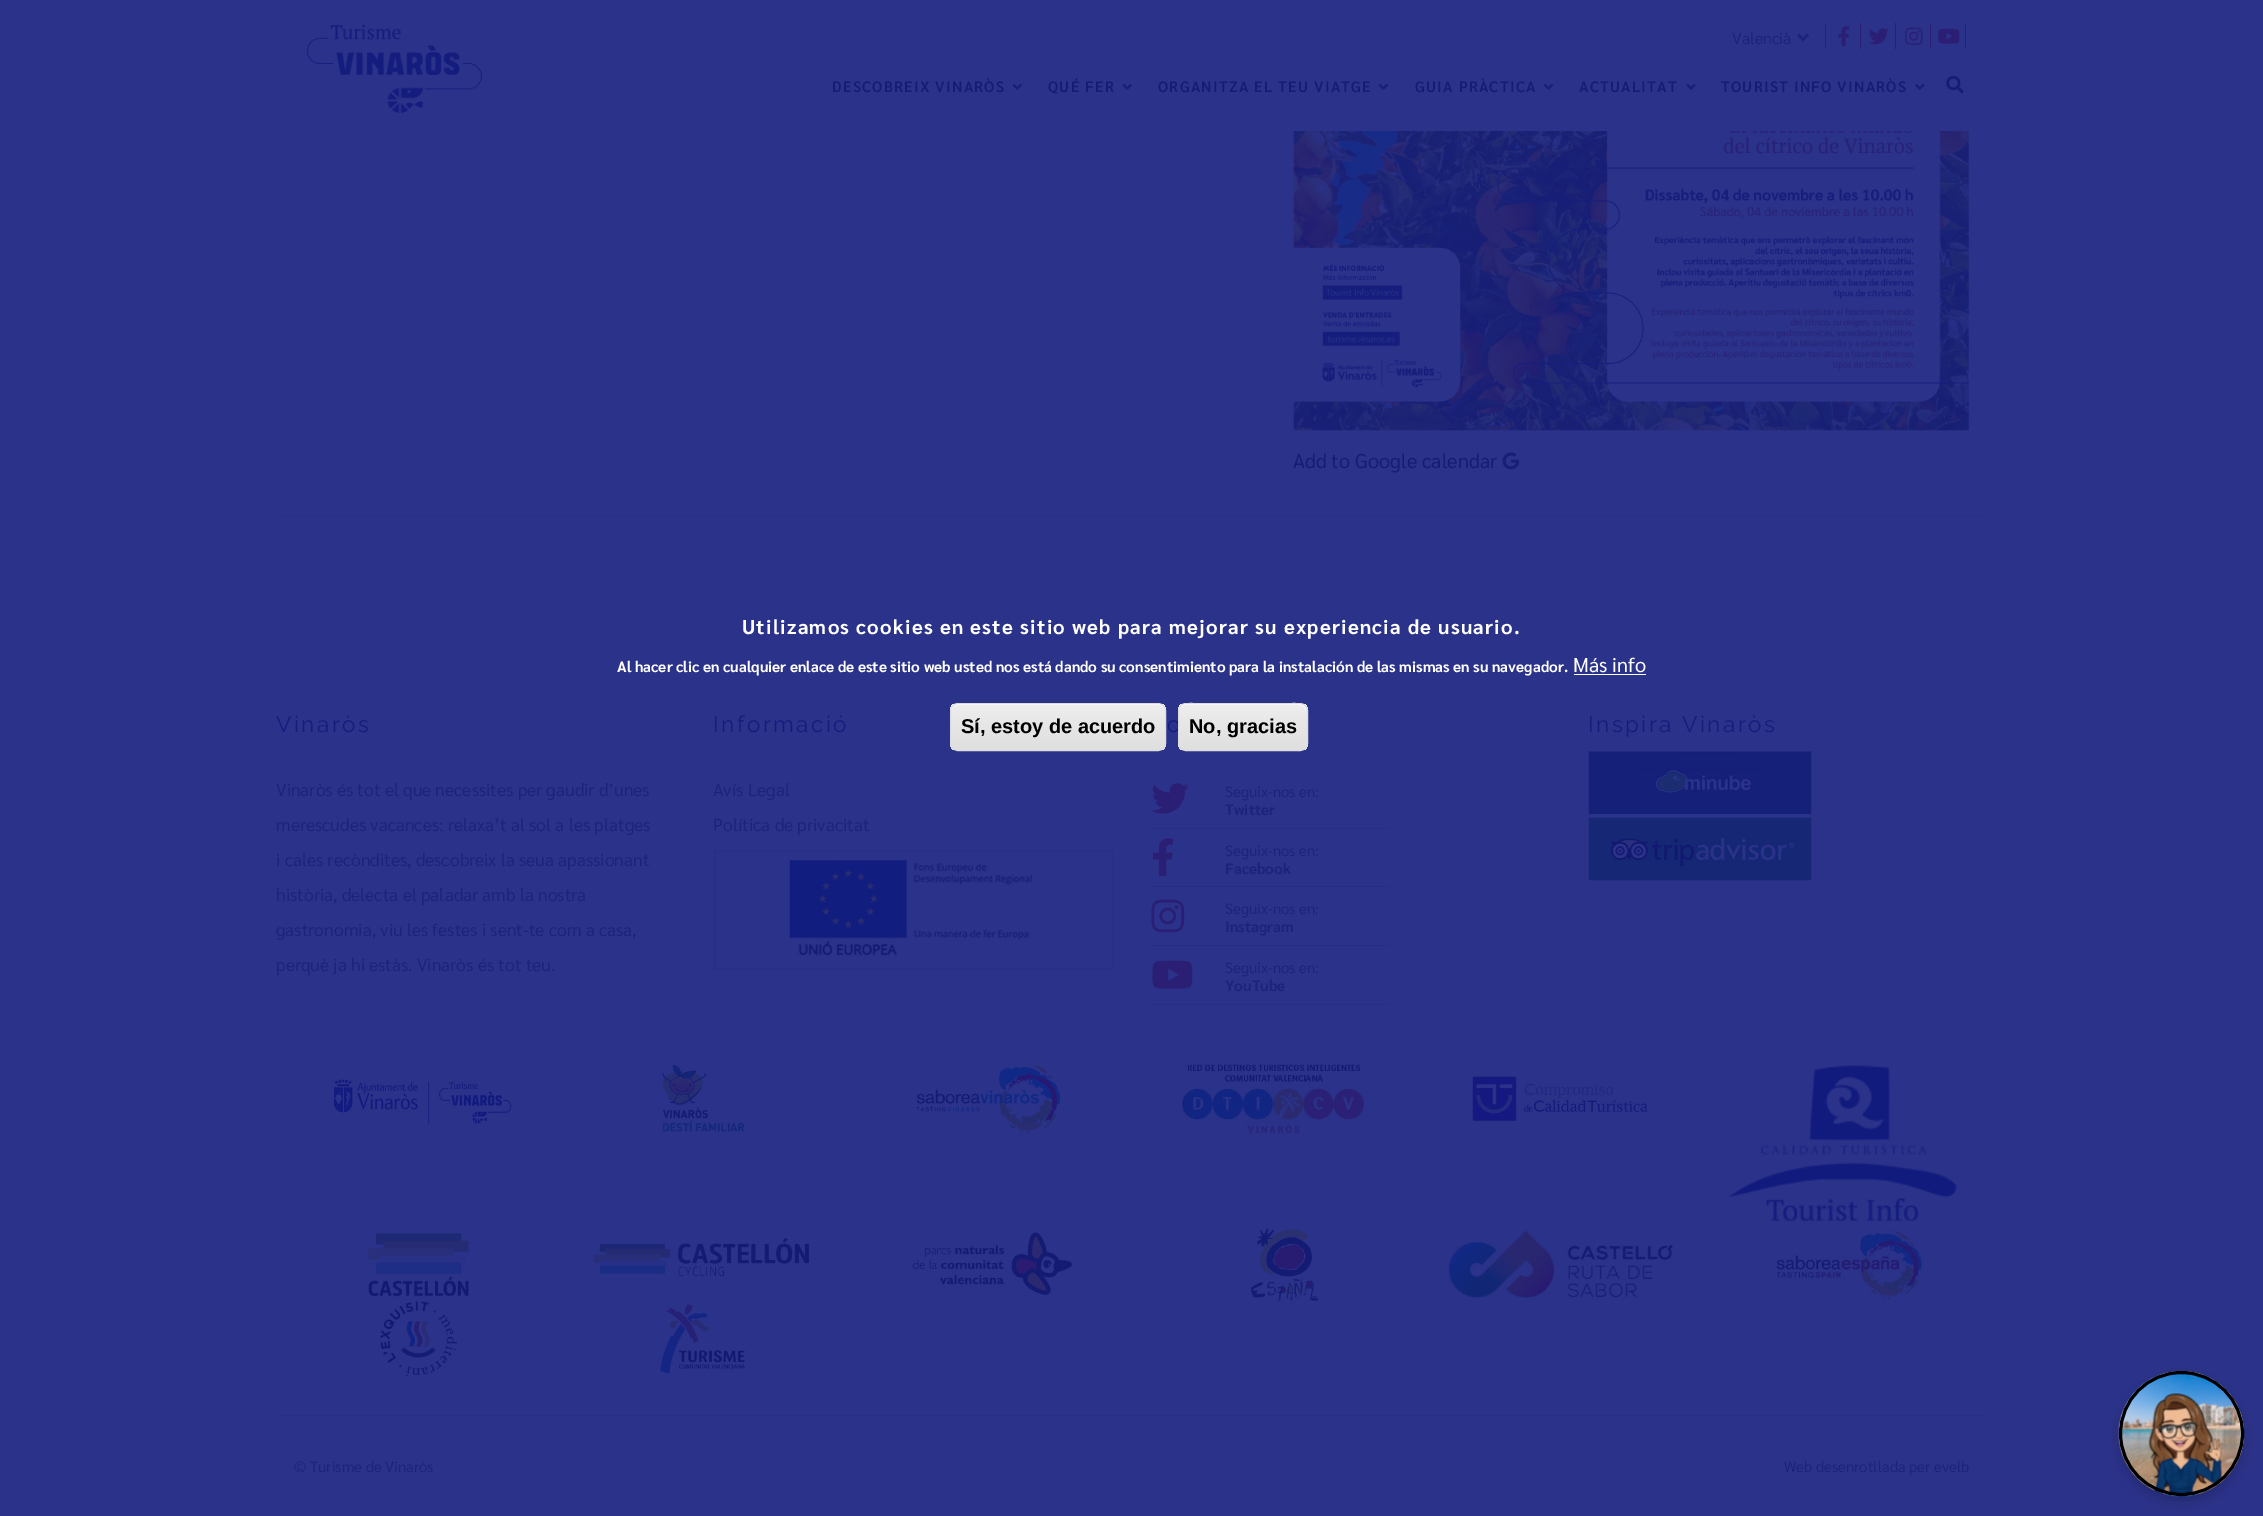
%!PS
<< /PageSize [2263 1516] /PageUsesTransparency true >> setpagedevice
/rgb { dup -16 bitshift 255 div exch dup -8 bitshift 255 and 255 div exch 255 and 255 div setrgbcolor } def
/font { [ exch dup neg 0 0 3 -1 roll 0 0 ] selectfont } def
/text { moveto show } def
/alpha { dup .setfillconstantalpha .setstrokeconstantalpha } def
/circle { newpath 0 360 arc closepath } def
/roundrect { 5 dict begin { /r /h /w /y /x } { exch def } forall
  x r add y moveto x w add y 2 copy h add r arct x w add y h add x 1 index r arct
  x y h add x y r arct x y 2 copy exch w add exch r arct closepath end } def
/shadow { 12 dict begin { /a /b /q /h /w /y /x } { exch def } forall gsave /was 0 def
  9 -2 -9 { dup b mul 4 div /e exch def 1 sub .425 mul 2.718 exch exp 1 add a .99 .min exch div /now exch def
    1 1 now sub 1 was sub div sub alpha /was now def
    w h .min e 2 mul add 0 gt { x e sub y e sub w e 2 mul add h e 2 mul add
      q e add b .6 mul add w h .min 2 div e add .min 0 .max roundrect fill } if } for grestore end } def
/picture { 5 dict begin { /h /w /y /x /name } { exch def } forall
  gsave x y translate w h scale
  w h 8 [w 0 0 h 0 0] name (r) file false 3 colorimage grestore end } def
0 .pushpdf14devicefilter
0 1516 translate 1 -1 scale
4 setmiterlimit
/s1 { /Sarabun-Regular 16 font 16#1B237A rgb } def
/s2 { /Sarabun-Regular 20 font 16#151C73 rgb } def
/s3 { /Sarabun-Regular 17.5 font 16#1B237A rgb } def
/s4 { /Sarabun-Regular 15 font 16#1B237A rgb } def
/s5 { /Sarabun-Bold 15 font 16#1B237A rgb } def
/s6 { /Sarabun-Bold 15 font 16#FFFFFF rgb } def
/s7 { /Sarabun-Regular 20 font 16#FFFFFF rgb } def
/s8 { /LiberationSans-Bold 20 font 16#000000 rgb } def
16#2B3289 rgb
0 0 2263 1516 rectfill
(pic1.raw) 306 24 177 89 picture
16#1B237A rgb
2.5 setlinewidth
1798 34.5 moveto 1803 39.5 lineto 1808 34.5 lineto stroke
s1
(Valencià) 1732 44 text
16#2B1F75 rgb
1825 23 1 26 rectfill
(pic2.raw) 1838 26 12 21 picture
1860 23 1 26 rectfill
(pic3.raw) 1869 28 20 17 picture
1895 23 1 26 rectfill
(pic4.raw) 1905 27 18 18 picture
1965 23 1 26 rectfill
1930 23 1 26 rectfill
(pic5.raw) 1938 28 22 16 picture
/Sarabun-SemiBold 15 font
16#151C73 rgb
832 92 moveto 1.25 0 (DESCOBREIX VINARÒS) ashow
(pic6.raw) 1012 83 10 7 picture
1048 92 moveto 1.25 0 (QUÉ FER) ashow
(pic6.raw) 1122 83 10 7 picture
1158 92 moveto 1.25 0 (ORGANITZA EL TEU VIATGE) ashow
(pic7.raw) 1378 83 11 7 picture
1415 92 moveto 1.25 0 (GUIA PRÀCTICA) ashow
(pic7.raw) 1543 83 11 7 picture
1579 92 moveto 1.25 0 (ACTUALITAT) ashow
(pic8.raw) 1686 83 10 7 picture
1721 92 moveto 1.25 0 (TOURIST INFO VINARÒS) ashow
(pic9.raw) 1915 83 10 7 picture
(pic10.raw) 1946 75 18 19 picture
(pic11.raw) 1293 131 676 300 picture
s2
(Add to Google calendar) 1293 468 text
(pic12.raw) 1502 452 18 18 picture
16#282F87 rgb
276 516 1713 1 rectfill
/Raleway-Regular 22.5 font
16#141C7E rgb
276 732 moveto 2.5 0 (Vinaròs) ashow
s3
(Vinaròs és tot el que necessites per gaudir d’unes) 276 796 text
(merescudes vacances: relaxa’t al sol a les platges) 276 831 text
(i cales recòndites, descobreix la seua apassionant) 276 866 text
(història, delecta el paladar amb la nostra) 276 901 text
(gastronomia, viu les festes i sent-te com a casa,) 276 936 text
(perquè ja hi estàs. Vinaròs és tot teu.) 276 971 text
/Raleway-Regular 22.5 font
16#141C7E rgb
713 732 moveto 2.5 0 (Informació) ashow
s3
(Avís Legal) 713 796 text
(Política de privacitat) 713 831 text
(pic13.raw) 713 850 401 121 picture
/Raleway-Regular 22.5 font
16#141C7E rgb
1167 732 moveto 2.5 0 (o) ashow
16#272E86 rgb
1150 828 241 1 rectfill
(pic14.raw) 1151 783 38 31 picture
s4
(Seguix-nos en:) 1225 797 text
s5
(Twitter) 1225 815 text
16#272E86 rgb
1150 886 241 1 rectfill
(pic15.raw) 1152 838 21 38 picture
s4
(Seguix-nos en:) 1225 856 text
s5
(Facebook) 1225 874 text
16#272E86 rgb
1150 945 241 1 rectfill
(pic16.raw) 1151 899 34 34 picture
s4
(Seguix-nos en:) 1225 914 text
s5
(Instagram) 1225 932 text
16#272E86 rgb
1150 1004 241 1 rectfill
(pic17.raw) 1152 960 41 29 picture
s4
(Seguix-nos en:) 1225 973 text
s5
(YouTube) 1225 991 text
/Raleway-Regular 22.5 font
16#141C7E rgb
1588 732 moveto 2.5 0 (Inspira Vinaròs) ashow
(pic18.raw) 1588 751 224 63 picture
(pic19.raw) 1588 817 224 64 picture
(pic20.raw) 330 1076 183 51 picture
(pic21.raw) 659 1061 89 71 picture
(pic22.raw) 916 1063 145 72 picture
(pic23.raw) 1180 1061 189 76 picture
(pic24.raw) 1466 1071 188 51 picture
(pic25.raw) 1729 1065 228 157 picture
(pic26.raw) 368 1232 101 65 picture
(pic27.raw) 594 1238 215 39 picture
(pic28.raw) 910 1229 163 68 picture
(pic29.raw) 1250 1227 69 75 picture
(pic30.raw) 1445 1228 229 71 picture
(pic31.raw) 1776 1228 153 74 picture
(pic32.raw) 380 1301 77 76 picture
(pic33.raw) 659 1304 87 70 picture
16#282F87 rgb
276 1415 1713 1 rectfill
s4
(© Turisme de Vinaròs) 294 1472 text
(Web desenrotllada per evelb) 1784 1472 text
/Sarabun-Bold 20 font
16#FFFFFF rgb
742 634 moveto 1.25 0 (Utilizamos cookies en este sitio web para mejorar su experiencia de usuario.) ashow
s6
(Al hacer clic en cualquier enlace de este sitio web usted nos está dando su consentimiento para la instalación de las mismas en su navegador.) 617 672 text
s7
(Más info) 1573 672 text
1574 674 72 1 rectfill
gsave
950 703 216 48 8 roundrect clip newpath
gsave 950 704 moveto 1166 704 lineto 1166 750 lineto 950 750 lineto closepath clip newpath
<< /ShadingType 2 /ColorSpace /DeviceRGB /Coords [1058 704 1058 750] /Extend [true true] /Function << /FunctionType 3 /Domain [0 1] /Functions [<< /FunctionType 2 /Domain [0 1] /C0 [0.929 0.929 0.929] /C1 [0.929 0.929 0.929] /N 1 >> << /FunctionType 2 /Domain [0 1] /C0 [0.929 0.929 0.929] /C1 [0.875 0.875 0.875] /N 1 >>] /Bounds [0.05] /Encode [0 1 0 1] >> >> shfill grestore
grestore
958 705 moveto 1159 705 lineto 1162 705 1165 708 1165 711 curveto 1165 708 1164 705 1160 704 curveto 956 704 lineto 952 705 951 708 951 711 curveto 951 708 954 705 958 705 curveto closepath fill
16#DCDCDC rgb
1 setlinewidth
950.5 703.5 215 47 7.5 roundrect stroke
s8
(Sí, estoy de acuerdo) 961 733 text
gsave
1178 703 130 48 8 roundrect clip newpath
gsave 1178 704 moveto 1308 704 lineto 1308 750 lineto 1178 750 lineto closepath clip newpath
<< /ShadingType 2 /ColorSpace /DeviceRGB /Coords [1243 704 1243 750] /Extend [true true] /Function << /FunctionType 3 /Domain [0 1] /Functions [<< /FunctionType 2 /Domain [0 1] /C0 [0.929 0.929 0.929] /C1 [0.929 0.929 0.929] /N 1 >> << /FunctionType 2 /Domain [0 1] /C0 [0.929 0.929 0.929] /C1 [0.875 0.875 0.875] /N 1 >>] /Bounds [0.05] /Encode [0 1 0 1] >> >> shfill grestore
grestore
16#FFFFFF rgb
1185 705 moveto 1300 705 lineto 1303 705 1306 708 1306 711 curveto 1306 699 1286 704 1281 704 curveto 1204 704 lineto 1199 704 1179 699 1179 711 curveto 1179 708 1182 705 1185 705 curveto closepath fill
16#DCDCDC rgb
1178.5 703.5 129 47 7.5 roundrect stroke
s8
(No, gracias) 1189 733 text
2128 1385 107 108 53.5 7.5 0.15 shadow
2121 1380 120 120 60 7 0.18 shadow
(pic34.raw) 2118 1371 126 126 picture
3 setlinewidth
2181.5 1433.5 61 circle stroke
.poppdf14devicefilter showpage
